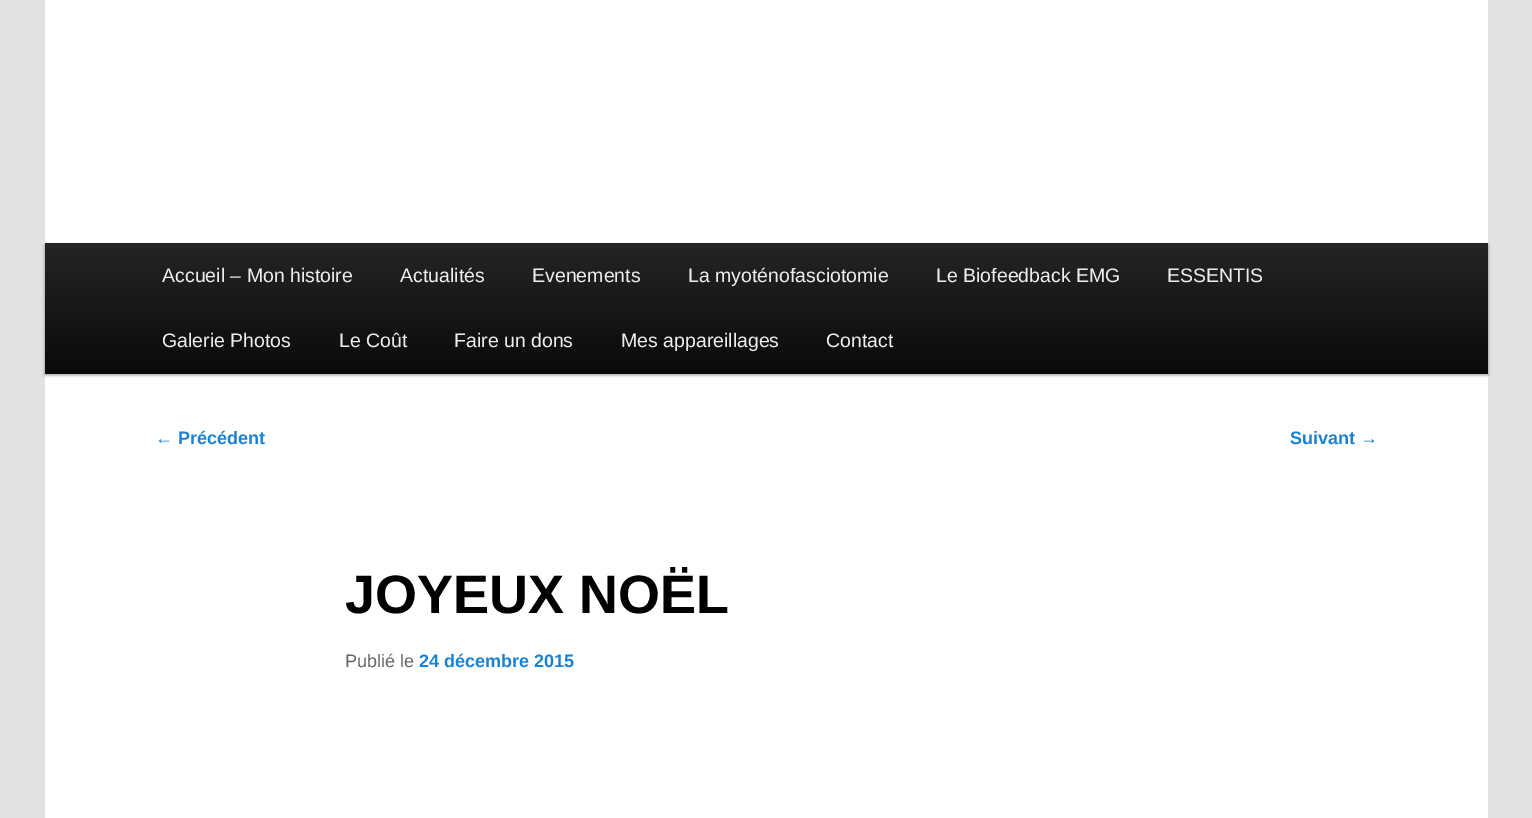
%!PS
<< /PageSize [1532 818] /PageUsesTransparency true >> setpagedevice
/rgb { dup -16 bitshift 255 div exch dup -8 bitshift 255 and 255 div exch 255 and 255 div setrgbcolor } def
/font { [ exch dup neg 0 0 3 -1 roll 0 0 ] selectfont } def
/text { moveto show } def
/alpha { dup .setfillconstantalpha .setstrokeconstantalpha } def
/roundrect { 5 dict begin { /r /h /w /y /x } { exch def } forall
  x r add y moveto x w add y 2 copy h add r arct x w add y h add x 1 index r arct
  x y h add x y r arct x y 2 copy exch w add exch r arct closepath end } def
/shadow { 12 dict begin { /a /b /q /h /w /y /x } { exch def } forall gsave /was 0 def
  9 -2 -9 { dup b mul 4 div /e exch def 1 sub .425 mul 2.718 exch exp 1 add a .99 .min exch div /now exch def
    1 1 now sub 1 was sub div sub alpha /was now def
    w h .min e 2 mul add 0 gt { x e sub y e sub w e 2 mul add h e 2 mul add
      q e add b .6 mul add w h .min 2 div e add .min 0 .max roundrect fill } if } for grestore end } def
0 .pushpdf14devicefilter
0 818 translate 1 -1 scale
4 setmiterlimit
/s1 { /LiberationSans-Regular 19.5 font 16#EEEEEE rgb } def
/s2 { /LiberationSans-Regular 18 font 16#1982D1 rgb } def
/s3 { /LiberationSans-Bold 18 font 16#1982D1 rgb } def
/s4 { /LiberationSans-Bold 54 font 16#000000 rgb } def
/s5 { /LiberationSans-Regular 18 font 16#666666 rgb } def
16#E2E2E2 rgb
0 0 1532 818 rectfill
16#FFFFFF rgb
45 0 1443 818 rectfill
16#000000 rgb
45 245 1443 130 0 1.5 0.4 shadow
gsave 45 243 moveto 1488 243 lineto 1488 374 lineto 45 374 lineto closepath clip newpath
<< /ShadingType 2 /ColorSpace /DeviceRGB /Coords [767 243 767 374] /Extend [true true] /Function << /FunctionType 2 /Domain [0 1] /C0 [0.145 0.145 0.145] /C1 [0.039 0.039 0.039] /N 1 >> >> shfill grestore
s1
(Accueil – Mon histoire) 162 282 text
(Actualités) 400 282 text
(Evenements) 532 282 text
(La myoténofasciotomie) 688 282 text
(Le Biofeedback EMG) 936 282 text
(ESSENTIS) 1167 282 text
(Galerie Photos) 162 347 text
(Le Coût) 339 347 text
(Faire un dons) 454 347 text
(Mes appareillages) 621 347 text
(Contact) 826 347 text
s2
(←) 155 444 text
s3
(Précédent) 178 444 text
(Suivant) 1290 444 text
s2
(→) 1360 444 text
s4
(JOYEUX NOËL) 345 613 text
s5
(Publié le) 345 667 text
s3
(24 décembre 2015) 419 667 text
.poppdf14devicefilter showpage
